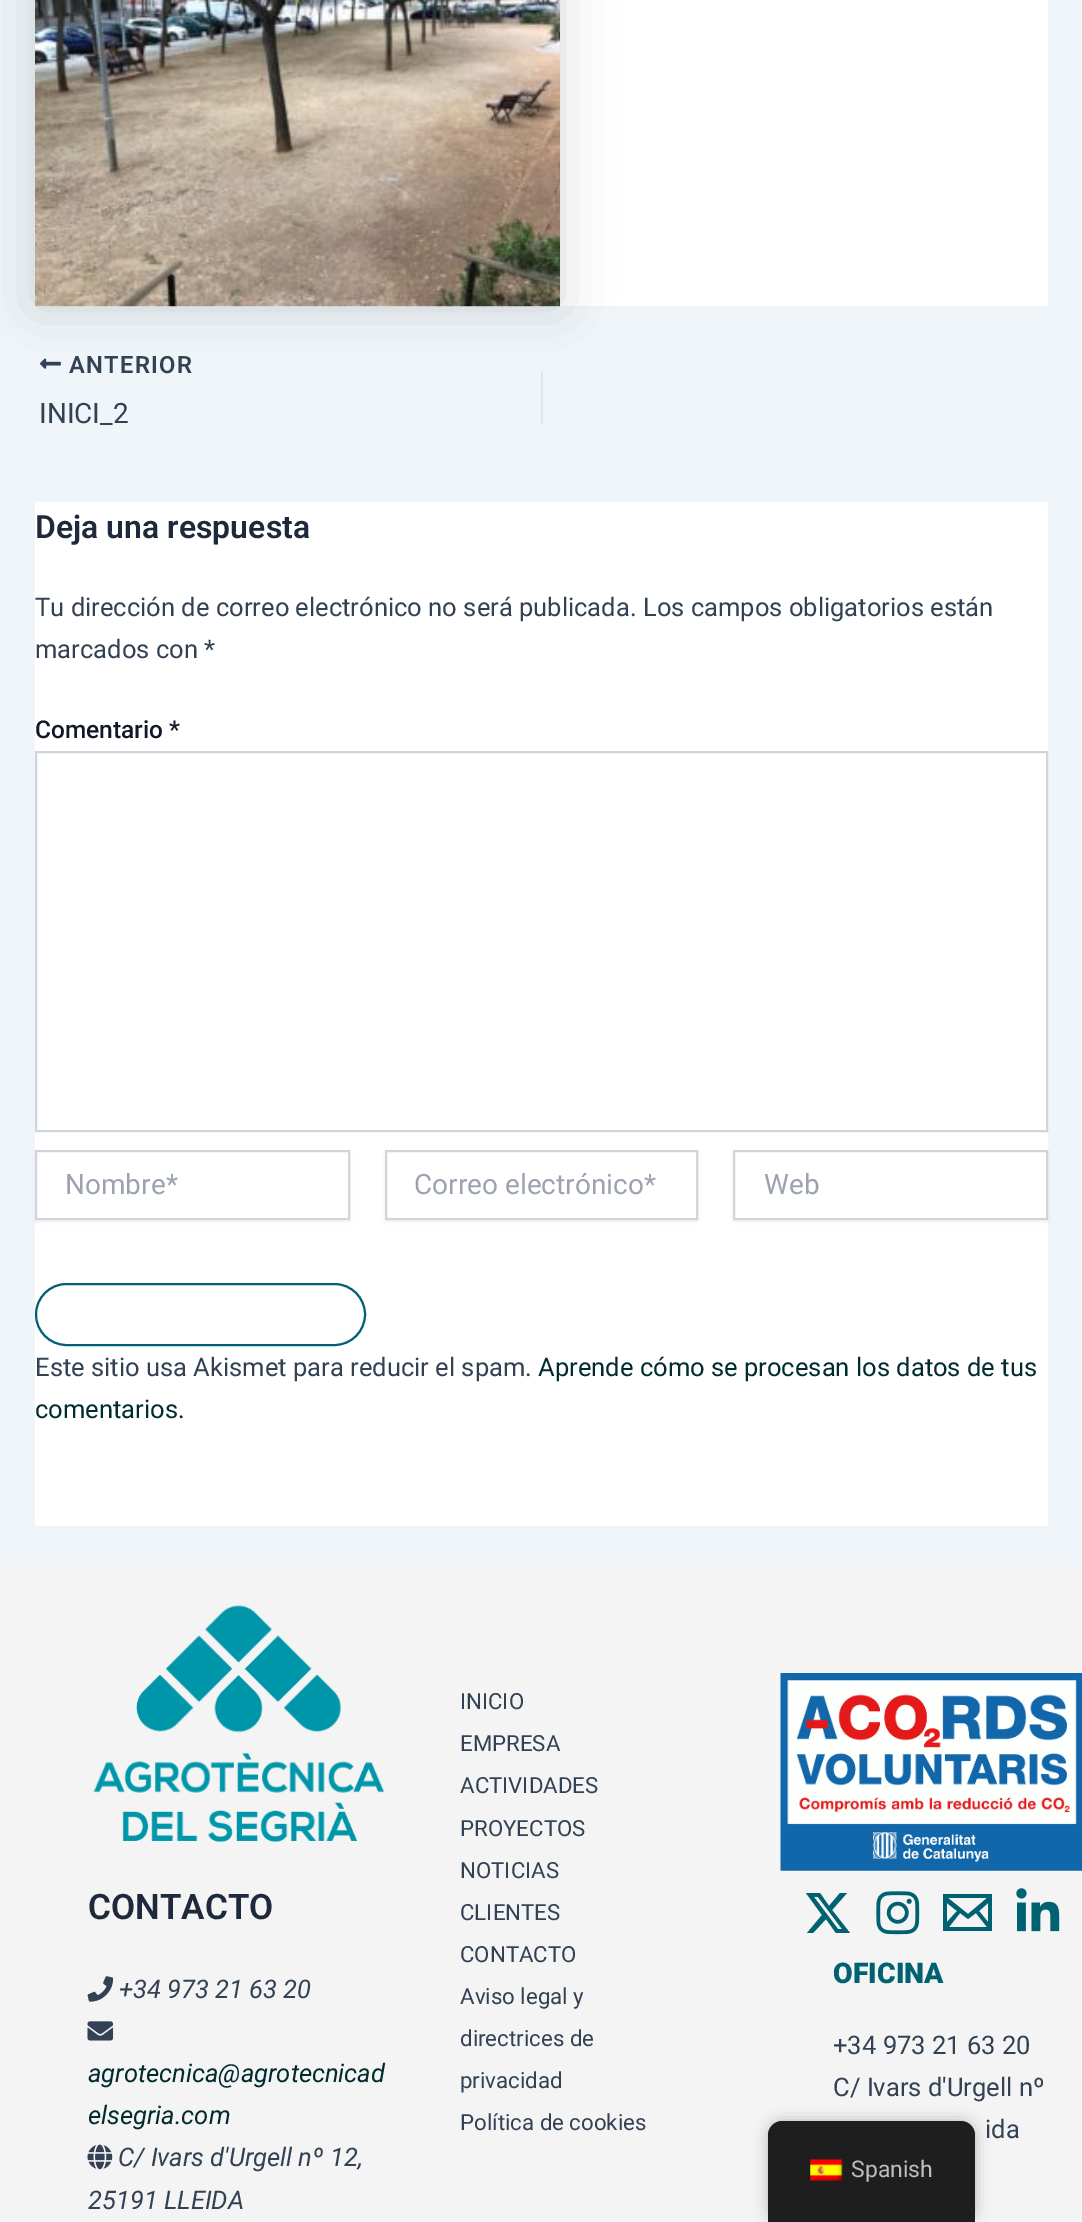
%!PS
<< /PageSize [1082 2222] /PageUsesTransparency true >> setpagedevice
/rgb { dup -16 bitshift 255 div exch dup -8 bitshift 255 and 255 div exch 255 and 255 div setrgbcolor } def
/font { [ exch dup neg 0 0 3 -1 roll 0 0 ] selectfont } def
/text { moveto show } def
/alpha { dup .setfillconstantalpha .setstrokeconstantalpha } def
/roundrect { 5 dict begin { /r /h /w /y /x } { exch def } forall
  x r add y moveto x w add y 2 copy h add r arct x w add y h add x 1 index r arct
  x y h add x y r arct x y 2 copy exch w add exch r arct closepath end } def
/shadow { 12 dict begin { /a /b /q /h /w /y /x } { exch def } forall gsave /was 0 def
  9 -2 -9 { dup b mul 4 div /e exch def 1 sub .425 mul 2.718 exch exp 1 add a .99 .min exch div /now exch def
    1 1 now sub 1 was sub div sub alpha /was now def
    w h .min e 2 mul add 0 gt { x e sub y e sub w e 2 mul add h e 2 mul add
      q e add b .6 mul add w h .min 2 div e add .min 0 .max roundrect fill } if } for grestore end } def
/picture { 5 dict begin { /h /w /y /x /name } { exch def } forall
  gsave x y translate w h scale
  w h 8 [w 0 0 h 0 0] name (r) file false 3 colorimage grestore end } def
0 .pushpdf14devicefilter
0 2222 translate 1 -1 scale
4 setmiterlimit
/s1 { /Roboto-Regular 28 font 16#334155 rgb } def
/s2 { /Roboto-SemiBold 32 font 16#1E293B rgb } def
/s3 { /Roboto-Regular 25.55 font 16#334155 rgb } def
/s4 { /Roboto-Medium 24.5 font 16#111827 rgb } def
/s5 { /Roboto-Regular 28 font 16#9CA3AF rgb } def
/s6 { /Roboto-Regular 25.55 font 16#002C2F rgb } def
/s7 { /Roboto-SemiBold 35 font 16#1E293B rgb } def
/s8 { /Roboto-Italic 25.55 font 16#334155 rgb } def
/s9 { /Roboto-Italic 25.55 font 16#002C2F rgb } def
/s10 { /Roboto-Regular 22.25 font 16#334155 rgb } def
/s11 { /Roboto-Black 28.5 font 16#006171 rgb } def
/s12 { /Roboto-Regular 23 font 16#BDBDBD rgb } def
16#F0F5FA rgb
0 0 1082 2222 rectfill
16#FFFFFF rgb
560 0 488 306 rectfill
16#000000 rgb
35 -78 525 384 0 26 0.15 shadow
(pic1.raw) 35 0 525 307 picture
(pic2.raw) 40 358 21 11 picture
/Roboto-SemiBold 23.75 font
16#334155 rgb
69 373 moveto 1.25 0 (ANTERIOR) ashow
s1
(INICI_2) 39 423 text
16#E1E8ED rgb
541 371 2 53 rectfill
16#FFFFFF rgb
35 502 1013 1024 rectfill
s2
(Deja una respuesta) 35 538 text
s3
(Tu dirección de correo electrónico no será publicada. Los campos obligatorios están) 35 616 text
(marcados con *) 35 658 text
s4
(Comentario *) 35 738 text
16#D1D5DB rgb
2 setlinewidth
36 752 1011 379 rectstroke
16#000000 rgb
35 1152 315 70 0 2 0.05 shadow
16#FFFFFF rgb
36 1151 moveto 349 1151 lineto 349 1219 lineto 36 1219 lineto closepath gsave fill grestore
16#D1D5DB rgb
stroke
s5
(Nombre*) 65 1194 text
16#000000 rgb
385 1152 313 70 0 2 0.05 shadow
16#FFFFFF rgb
386 1151 moveto 697 1151 lineto 697 1219 lineto 386 1219 lineto closepath gsave fill grestore
16#D1D5DB rgb
stroke
s5
(Correo electrónico*) 414 1194 text
16#000000 rgb
733 1152 315 70 0 2 0.05 shadow
16#FFFFFF rgb
734 1151 moveto 1047 1151 lineto 1047 1219 lineto 734 1219 lineto closepath gsave fill grestore
16#D1D5DB rgb
stroke
s5
(Web) 764 1194 text
16#006171 rgb
36 1284 329 61 30.5 roundrect stroke
s3
(Este sitio usa Akismet para reducir el spam.) 35 1376 text
s6
(Aprende cómo se procesan los datos de tus) 538 1376 text
(comentarios.) 35 1418 text
16#F4F4F4 rgb
0 1565 1082 657 rectfill
(pic3.raw) 93 1605 292 237 picture
s7
(CONTACTO) 88 1919 text
(pic4.raw) 87 1976 27 26 picture
s8
(+34 973 21 63 20) 119 1998 text
(pic5.raw) 87 2021 27 20 picture
s9
(agrotecnica@agrotecnicad) 88 2082 text
(elsegria.com) 88 2124 text
(pic6.raw) 87 2144 26 26 picture
s8
(C/ Ivars d'Urgell nº 12,) 118 2166 text
(25191 LLEIDA) 88 2209 text
s10
(INICIO) 460 1709 text
(EMPRESA) 460 1751 text
(ACTIVIDADES) 460 1793 text
(PROYECTOS) 460 1836 text
(NOTICIAS) 460 1878 text
(CLIENTES) 460 1920 text
(CONTACTO) 460 1962 text
(Aviso legal y) 460 2004 text
(directrices de) 460 2046 text
(privacidad) 460 2088 text
(Política de cookies) 460 2130 text
(pic7.raw) 780 1673 302 198 picture
16#006171 rgb
840 1893 moveto 847 1893 lineto 832 1910 lineto 850 1933 lineto 836 1933 lineto 826 1919 lineto 813 1933 lineto 807 1933 lineto 822 1915 lineto 806 1893 lineto 820 1893 lineto 829 1906 lineto closepath 838 1929 moveto 842 1929 lineto 818 1897 lineto 814 1897 lineto closepath fill
(pic8.raw) 876 1891 44 44 picture
943 1894 moveto 943 1931 lineto 992 1931 lineto 992 1894 lineto closepath 957 1911 moveto 947 1922 lineto 947 1903 lineto closepath 948 1898 moveto 987 1898 lineto 968 1914 lineto closepath 960 1913 moveto 968 1919 lineto 976 1913 lineto 987 1927 lineto 949 1927 lineto closepath 979 1911 moveto 988 1903 lineto 988 1922 lineto closepath fill
(pic9.raw) 1016 1888 44 44 picture
s11
(OFICINA) 833 1983 text
s3
(+34 973 21 63 20) 833 2054 text
(C/ Ivars d'Urgell nº) 833 2096 text
(ida) 985 2138 text
16#000000 rgb
768 2121 207 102 14 7 0.25 shadow
16#1E1E1E rgb
782 2121 moveto 961 2121 lineto 968.5 2121 975 2127.5 975 2135 curveto 975 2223 lineto 768 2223 lineto 768 2135 lineto 768 2127.5 774.5 2121 782 2121 curveto closepath fill
(pic10.raw) 810 2159 33 22 picture
s12
(Spanish) 851 2177 text
.poppdf14devicefilter showpage
